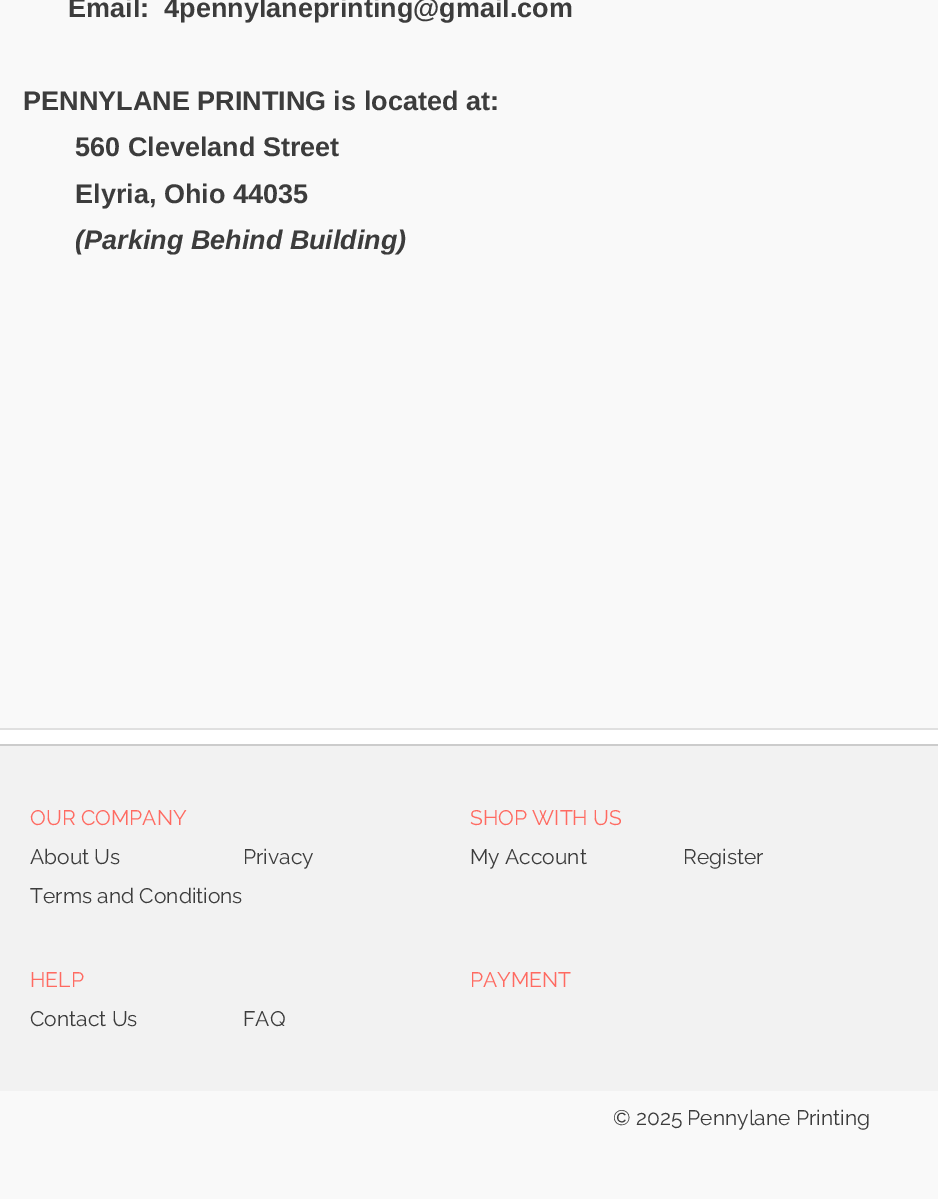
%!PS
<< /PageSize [938 1199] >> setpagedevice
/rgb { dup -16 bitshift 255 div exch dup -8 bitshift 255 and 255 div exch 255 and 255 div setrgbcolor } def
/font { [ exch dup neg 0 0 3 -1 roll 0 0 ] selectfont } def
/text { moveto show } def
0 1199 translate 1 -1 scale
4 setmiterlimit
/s1 { /LiberationSans-Bold 27 font 16#3C3C3C rgb } def
/s2 { /LiberationSans-BoldItalic 27 font 16#3C3C3C rgb } def
/s3 { /Raleway-Regular 21 font 16#FF6A61 rgb } def
/s4 { /Raleway-Regular 21 font 16#3C3C3C rgb } def
16#F9F9F9 rgb
0 0 938 1199 rectfill
s1
(Email:) 68 17 text
(4pennylaneprinting@gmail.com) 164 17 text
(PENNYLANE PRINTING is located at:) 23 110 text
(560 Cleveland Street) 75 156 text
(Elyria, Ohio 44035) 75 203 text
s2
(\(Parking Behind Building\)) 75 249 text
16#FFFFFF rgb
0 730 938 14 rectfill
16#E0E0E0 rgb
0 728 938 2 rectfill
16#F2F2F2 rgb
0 746 938 345 rectfill
16#CCCCCC rgb
0 744 938 2 rectfill
s3
(OUR COMPANY) 30 825 text
s4
(About Us) 30 864 text
(Privacy) 243 864 text
(Terms and Conditions) 30 903 text
s3
(SHOP WITH US) 470 825 text
s4
(My Account) 470 864 text
(Register) 683 864 text
s3
(HELP) 30 987 text
s4
(Contact Us) 30 1026 text
(FAQ) 243 1026 text
s3
(PAYMENT) 470 987 text
s4
(© 2025 Pennylane Printing) 613 1125 text
showpage
